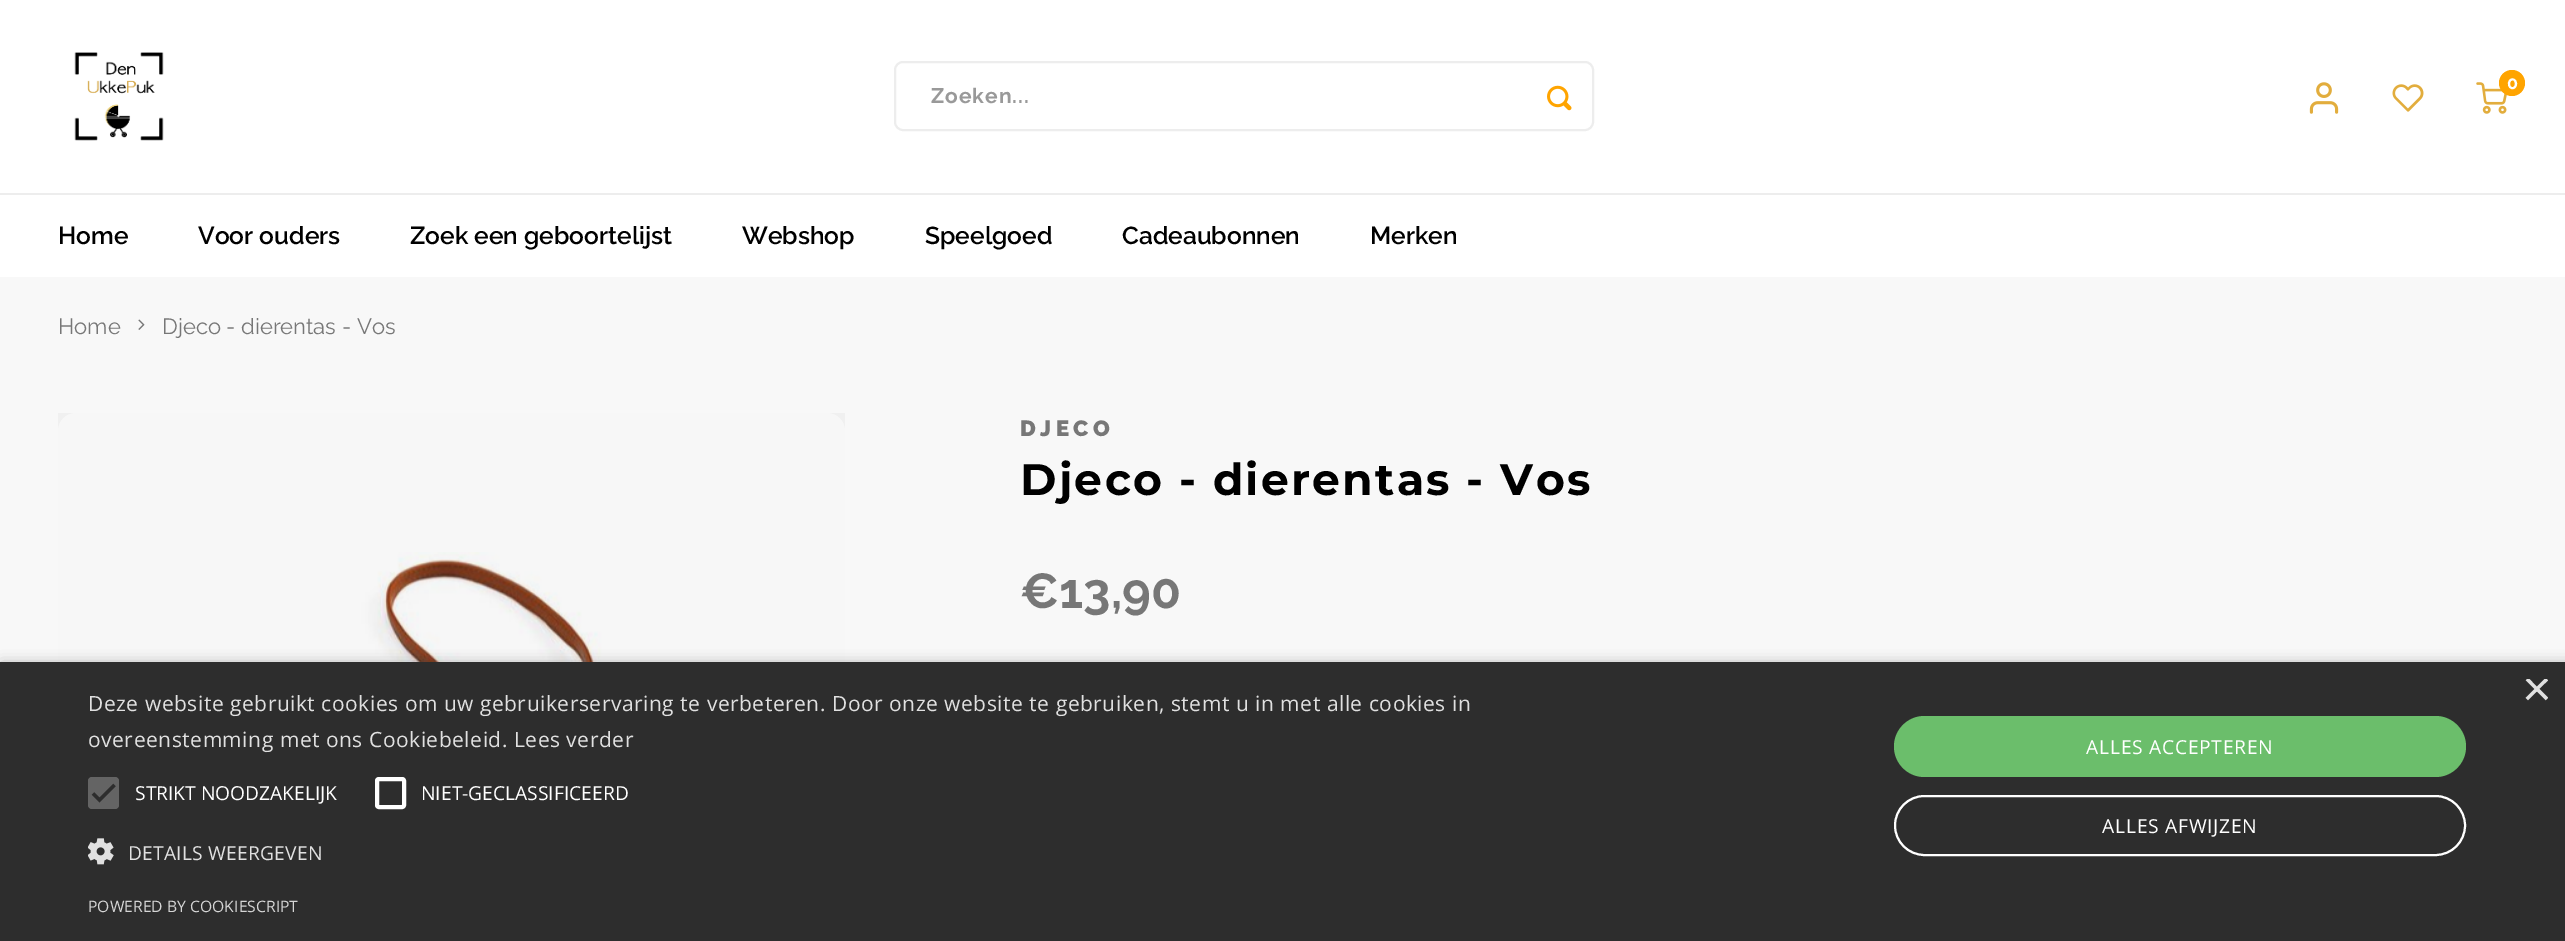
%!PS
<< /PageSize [2565 941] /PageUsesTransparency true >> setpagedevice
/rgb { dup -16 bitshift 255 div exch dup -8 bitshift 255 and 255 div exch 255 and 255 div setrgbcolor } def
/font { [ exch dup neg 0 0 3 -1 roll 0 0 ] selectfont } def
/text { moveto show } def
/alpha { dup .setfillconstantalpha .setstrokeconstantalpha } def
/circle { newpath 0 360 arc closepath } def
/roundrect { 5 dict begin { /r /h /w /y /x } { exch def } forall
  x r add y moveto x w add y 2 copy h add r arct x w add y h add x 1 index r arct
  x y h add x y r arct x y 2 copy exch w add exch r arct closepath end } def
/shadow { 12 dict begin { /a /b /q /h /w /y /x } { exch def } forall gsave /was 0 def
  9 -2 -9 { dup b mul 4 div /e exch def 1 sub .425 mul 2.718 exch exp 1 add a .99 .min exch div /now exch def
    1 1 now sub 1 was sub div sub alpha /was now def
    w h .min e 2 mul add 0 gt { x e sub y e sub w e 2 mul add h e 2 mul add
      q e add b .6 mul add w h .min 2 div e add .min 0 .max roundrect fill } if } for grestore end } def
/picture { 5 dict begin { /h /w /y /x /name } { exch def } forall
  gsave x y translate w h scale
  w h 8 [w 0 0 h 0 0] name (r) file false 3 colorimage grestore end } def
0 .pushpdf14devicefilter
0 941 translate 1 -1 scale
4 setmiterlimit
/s1 { /Raleway-Bold 18 font 16#FFFFFF rgb } def
/s2 { /Raleway-SemiBold 24.5 font 16#000000 rgb } def
/s3 { /Raleway-Regular 22 font 16#777777 rgb } def
/s4 { /Raleway-Bold 49 font 16#777777 rgb } def
/s5 { /LiberationSans-Regular 51 font 16#E0E0E0 rgb } def
/s6 { /OpenSans-Regular 19.25 font 16#FFFFFF rgb } def
/s7 { /OpenSans-Regular 15.75 font 16#D5D5D5 rgb } def
16#F8F8F8 rgb
0 0 2565 941 rectfill
16#FFFFFF rgb
0 0 2565 193 rectfill
(pic1.raw) 74 52 90 89 picture
(pic2.raw) 2309 82 30 32 picture
(pic3.raw) 2392 84 32 28 picture
(pic4.raw) 2476 82 31 32 picture
16#FFA400 rgb
2512 83 13 circle fill
s1
(0) 2507 89 text
16#EDEDED rgb
2 setlinewidth
895 62 698 68 8 roundrect stroke
/Raleway-Bold 21 font
16#999999 rgb
931 103 moveto 1 0 (Zoeken...) ashow
(pic5.raw) 1547 85 25 26 picture
16#FFFFFF rgb
0 195 2565 82 rectfill
16#EDEDED rgb
0 193 2565 2 rectfill
s2
(Home) 58 244 text
(Voor ouders) 198 244 text
(Zoek een geboortelijst) 410 244 text
(Webshop) 742 244 text
(Speelgoed) 925 244 text
(Cadeaubonnen) 1122 244 text
(Merken) 1370 244 text
s3
(Home) 58 334 text
(pic6.raw) 138 319 7 11 picture
(Djeco - dierentas - Vos) 162 334 text
16#FFFFFF rgb
58 413 787 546 18 roundrect fill
(pic7.raw) 146 552 600 110 picture
0.03 alpha
16#000000 rgb
58 413 787 249 rectfill
/Raleway-Black 22 font
1 alpha
16#777777 rgb
1020 436 moveto 4.5 0 (DJECO) ashow
/Montserrat-Bold 44.1 font
16#000000 rgb
1020 495 moveto 2.25 0 (Djeco - dierentas - Vos) ashow
s4
(€13,90) 1020 608 text
16#000000 rgb
2 665 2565 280 0 7 0.35 shadow
16#2D2D2D rgb
0 662 2565 279 rectfill
gsave
2522 679 26 26 rectclip
s5
(×) 2522 706 text
grestore
/OpenSans-Regular 21 font
16#E0E0E0 rgb
88 711 moveto 0.53 0 (Deze website gebruikt cookies om uw gebruikerservaring te verbeteren. Door onze website te gebruiken, stemt u in met alle cookies in) ashow
88 747 moveto 0.53 0 (overeenstemming met ons Cookiebeleid. Lees verder) ashow
16#646464 rgb
88 777 31 32 4 roundrect fill
16#2D2D2D rgb
3.2 setlinewidth
93 793.5 moveto 99.5 800 lineto 114.5 785 lineto stroke
s6
(STRIKT NOODZAKELIJK) 135 800 text
4 setlinewidth
377 779 27 28 2 roundrect stroke
(NIET-GECLASSIFICEERD) 421 800 text
(pic8.raw) 88 838 26 27 picture
16#E0E0E0 rgb
128 860 moveto 0.2 0 (DETAILS WEERGEVEN) ashow
16#6BBE6B rgb
1894 716 572 61 30.5 roundrect fill
16#FFFFFF rgb
2086 754 moveto 0.75 0 (ALLES ACCEPTEREN) ashow
2 setlinewidth
1895 796 570 59 29.5 roundrect stroke
2102 833 moveto 0.75 0 (ALLES AFWIJZEN) ashow
s7
(POWERED BY COOKIESCRIPT) 88 912 text
.poppdf14devicefilter showpage
